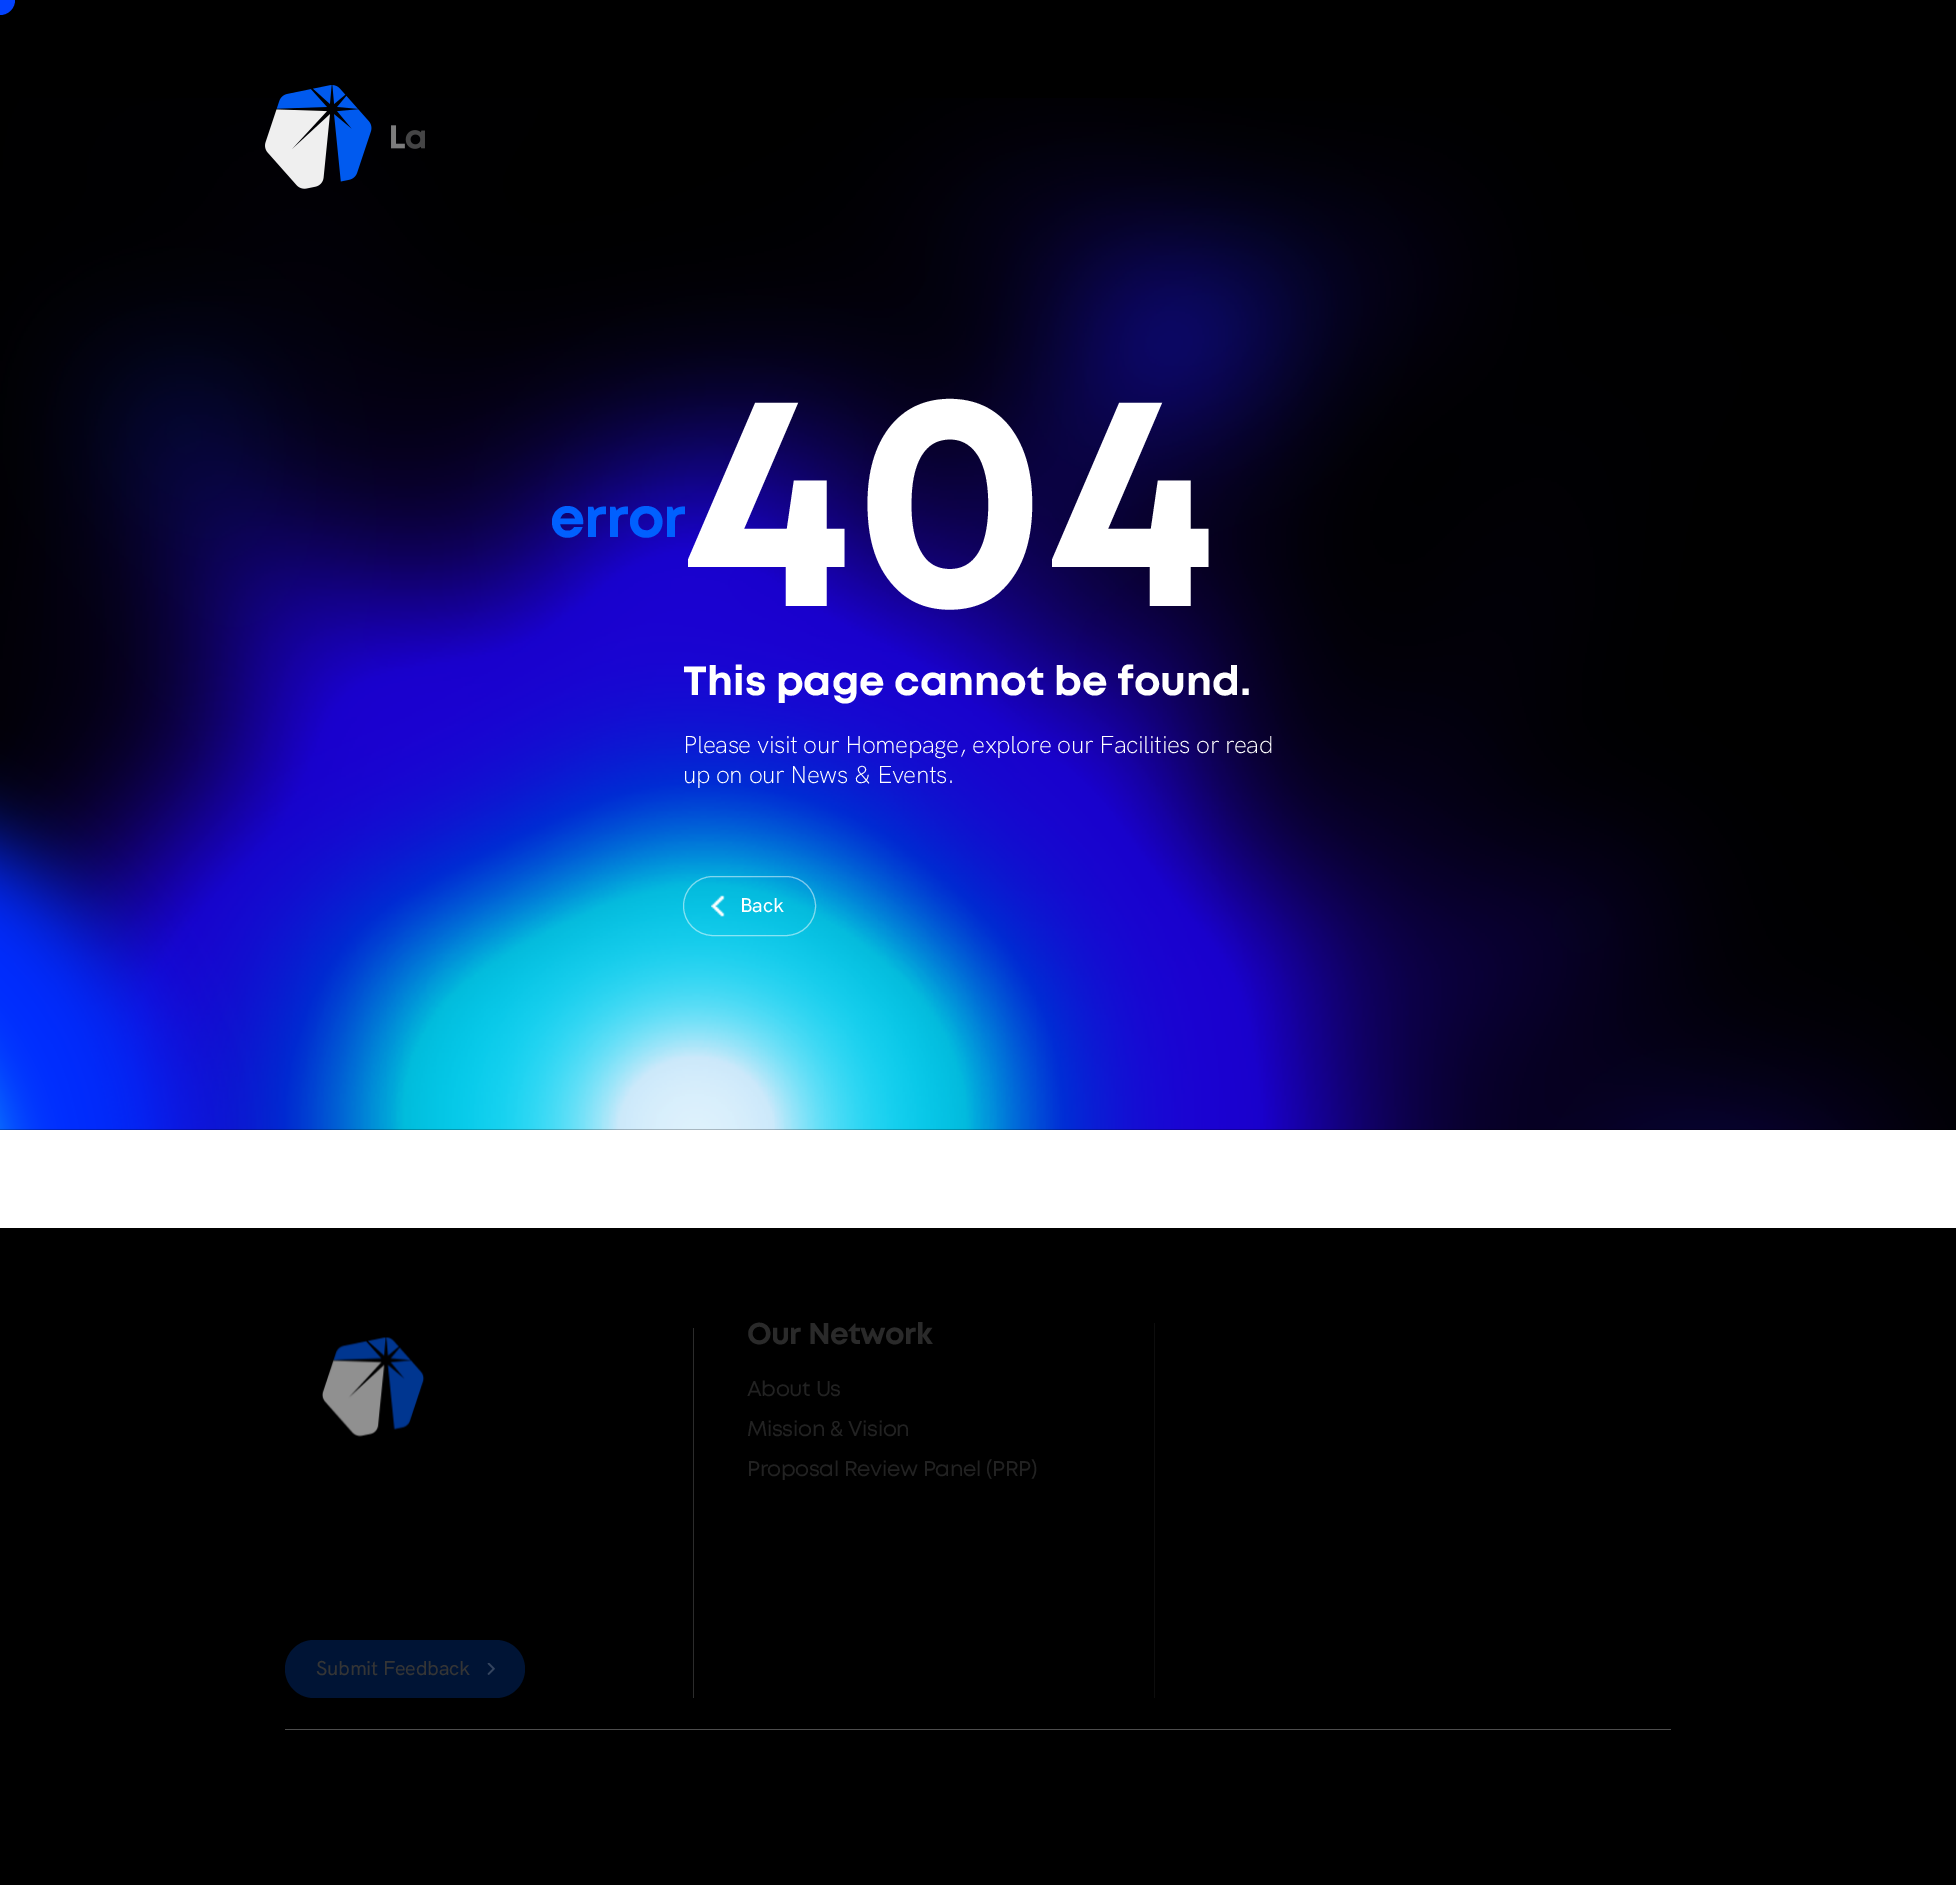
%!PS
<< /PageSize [1956 1885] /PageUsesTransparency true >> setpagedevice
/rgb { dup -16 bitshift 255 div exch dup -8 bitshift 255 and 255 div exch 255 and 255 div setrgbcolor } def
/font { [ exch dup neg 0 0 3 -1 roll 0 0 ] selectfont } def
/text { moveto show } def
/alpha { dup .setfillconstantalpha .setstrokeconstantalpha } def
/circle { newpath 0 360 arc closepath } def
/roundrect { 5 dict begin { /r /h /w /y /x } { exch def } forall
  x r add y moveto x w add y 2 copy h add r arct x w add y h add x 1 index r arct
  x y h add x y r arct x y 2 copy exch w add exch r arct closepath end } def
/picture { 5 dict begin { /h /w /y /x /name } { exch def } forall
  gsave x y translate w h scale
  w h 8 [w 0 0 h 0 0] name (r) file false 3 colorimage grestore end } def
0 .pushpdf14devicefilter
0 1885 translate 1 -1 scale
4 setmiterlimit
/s1 { /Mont-Bold 306 font 16#FFFFFF rgb } def
/s2 { /Mont-Bold 40.75 font 16#FFFFFF rgb } def
16#FFFFFF rgb
0 0 1956 1885 rectfill
16#000000 rgb
0 0 1956 1130 rectfill
16#0342FE rgb
0 0 15 circle fill
(pic2.raw) 0 98 1956 1032 picture
(pic1.raw) 265 85 160 104 picture
/Mont-Bold 56 font
16#0060FF rgb
550 537 moveto -1 0 (error) ashow
s1
(404) 683 606 text
s2
(This page cannot be found.) 683 695 text
/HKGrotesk-Light 24.45 font
683 753 moveto -0.55 0 (Please visit our Homepage, explore our Facilities or read) ashow
683 783 moveto -0.55 0 (up on our News & Events.) ashow
0.5 alpha
683.5 876.5 132 59 29.5 roundrect stroke
1 alpha
(pic3.raw) 711 895 14 22 picture
/HKGrotesk-Medium 20 font
740 912 moveto -0.25 0 (Back) ashow
16#000000 rgb
0 1228 1956 657 rectfill
/Mont-Bold 30 font
16#2A2A2A rgb
747 1344 moveto -0.6 0 (Our Network) ashow
/Mont-Regular 21.25 font
16#222222 rgb
747 1396 moveto -0.4 0 (About Us) ashow
747 1436 moveto -0.4 0 (Mission & Vision) ashow
747 1476 moveto -0.4 0 (Proposal Review Panel \(PRP\)) ashow
16#0D0D0D rgb
1154 1323 1 375 rectfill
(pic4.raw) 322 1337 103 100 picture
16#2C2C2C rgb
693 1328 1 370 rectfill
16#001435 rgb
285 1640 240 58 29 roundrect fill
/HKGrotesk-Medium 20 font
16#353535 rgb
316 1675 moveto -0.25 0 (Submit Feedback) ashow
(pic5.raw) 487 1663 8 12 picture
16#4D4D4D rgb
285 1729 1386 1 rectfill
.poppdf14devicefilter showpage
